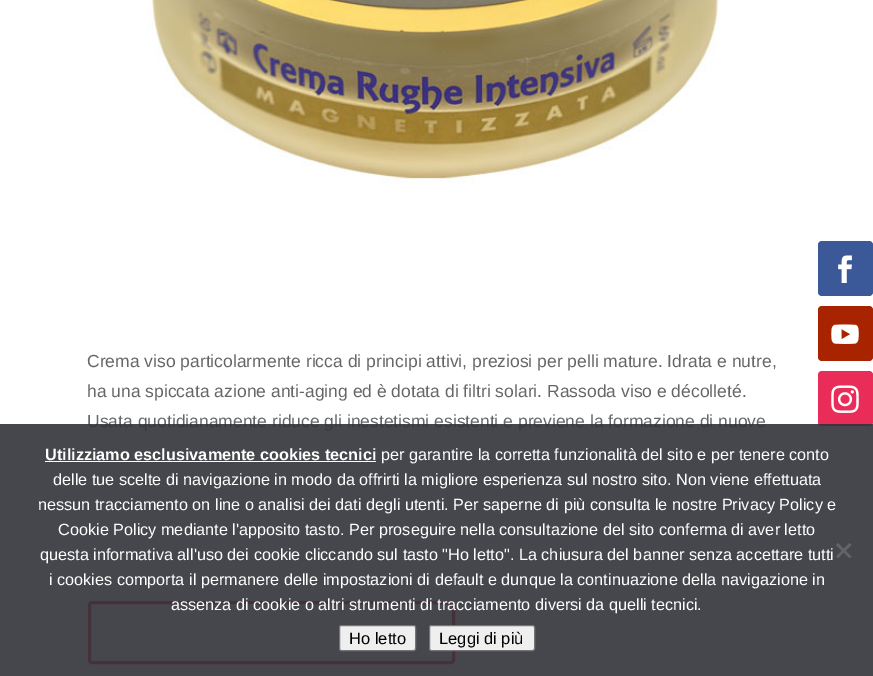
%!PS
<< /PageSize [873 676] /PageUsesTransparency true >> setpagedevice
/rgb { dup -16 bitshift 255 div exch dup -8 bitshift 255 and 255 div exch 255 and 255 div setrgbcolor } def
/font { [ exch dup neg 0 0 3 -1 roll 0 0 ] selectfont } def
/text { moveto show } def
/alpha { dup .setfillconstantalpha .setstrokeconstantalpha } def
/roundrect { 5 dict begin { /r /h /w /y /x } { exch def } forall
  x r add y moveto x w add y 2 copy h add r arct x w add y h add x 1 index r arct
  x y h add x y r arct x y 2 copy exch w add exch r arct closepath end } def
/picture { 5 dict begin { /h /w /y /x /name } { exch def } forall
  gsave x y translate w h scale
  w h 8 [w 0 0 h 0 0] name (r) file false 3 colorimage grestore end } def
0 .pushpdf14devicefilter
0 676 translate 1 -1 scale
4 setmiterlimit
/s1 { /LiberationSans-Regular 17.5 font 16#666666 rgb } def
/s2 { /LiberationSans-Bold 16.25 font 16#FFFFFF rgb } def
/s3 { /LiberationSans-Regular 16.25 font 16#FFFFFF rgb } def
/s4 { /LiberationSans-Regular 16.5 font 16#000000 rgb } def
16#FFFFFF rgb
0 0 873 676 rectfill
(pic1.raw) 148 0 574 183 picture
s1
(Crema viso particolarmente ricca di principi attivi, preziosi per pelli mature. Idrata e nutre,) 87 367 text
(ha una spiccata azione anti-aging ed è dotata di filtri solari. Rassoda viso e décolleté.) 87 397 text
(Usata quotidianamente riduce gli inestetismi esistenti e previene la formazione di nuove) 87 427 text
16#FC2A23 rgb
3 setlinewidth
89.5 602.5 364 60 2.5 roundrect stroke
16#3B5998 rgb
818 241 55 55 4 roundrect fill
(pic2.raw) 838 255 14 28 picture
16#A82400 rgb
818 306 55 55 4 roundrect fill
(pic3.raw) 831 324 28 20 picture
16#EA2C59 rgb
818 371 55 55 4 roundrect fill
(pic4.raw) 831 385 28 28 picture
0.9 alpha
16#32323A rgb
0 424 873 252 rectfill
1 alpha
s2
(Utilizziamo esclusivamente cookies tecnici) 45 460 text
45 461 331 1 rectfill
s3
(per garantire la corretta funzionalità del sito e per tenere conto) 381 460 text
(delle tue scelte di navigazione in modo da offrirti la migliore esperienza sul nostro sito. Non viene effettuata) 53 485 text
(nessun tracciamento on line o analisi dei dati degli utenti. Per saperne di più consulta le nostre Privacy Policy e) 38 510 text
(Cookie Policy mediante l'apposito tasto. Per proseguire nella consultazione del sito conferma di aver letto) 58 535 text
(questa informativa all'uso dei cookie cliccando sul tasto "Ho letto". La chiusura del banner senza accettare tutti) 40 560 text
(i cookies comporta il permanere delle impostazioni di default e dunque la continuazione della navigazione in) 49 585 text
(assenza di cookie o altri strumenti di tracciamento diversi da quelli tecnici.) 171 610 text
16#636367 rgb
849.5 543 moveto 851.5 545 lineto 838 558 lineto 836 556.5 lineto closepath fill
836 545 moveto 838 543 lineto 851.5 556.5 lineto 849.5 558 lineto closepath fill
16#EFEFEF rgb
339.5 625.5 76 25 2 roundrect gsave fill grestore
16#767676 rgb
1 setlinewidth
stroke
s4
(Ho letto) 349 644 text
16#EFEFEF rgb
429.5 625.5 105 25 2 roundrect gsave fill grestore
16#767676 rgb
stroke
s4
(Leggi di più) 439 644 text
.poppdf14devicefilter showpage
